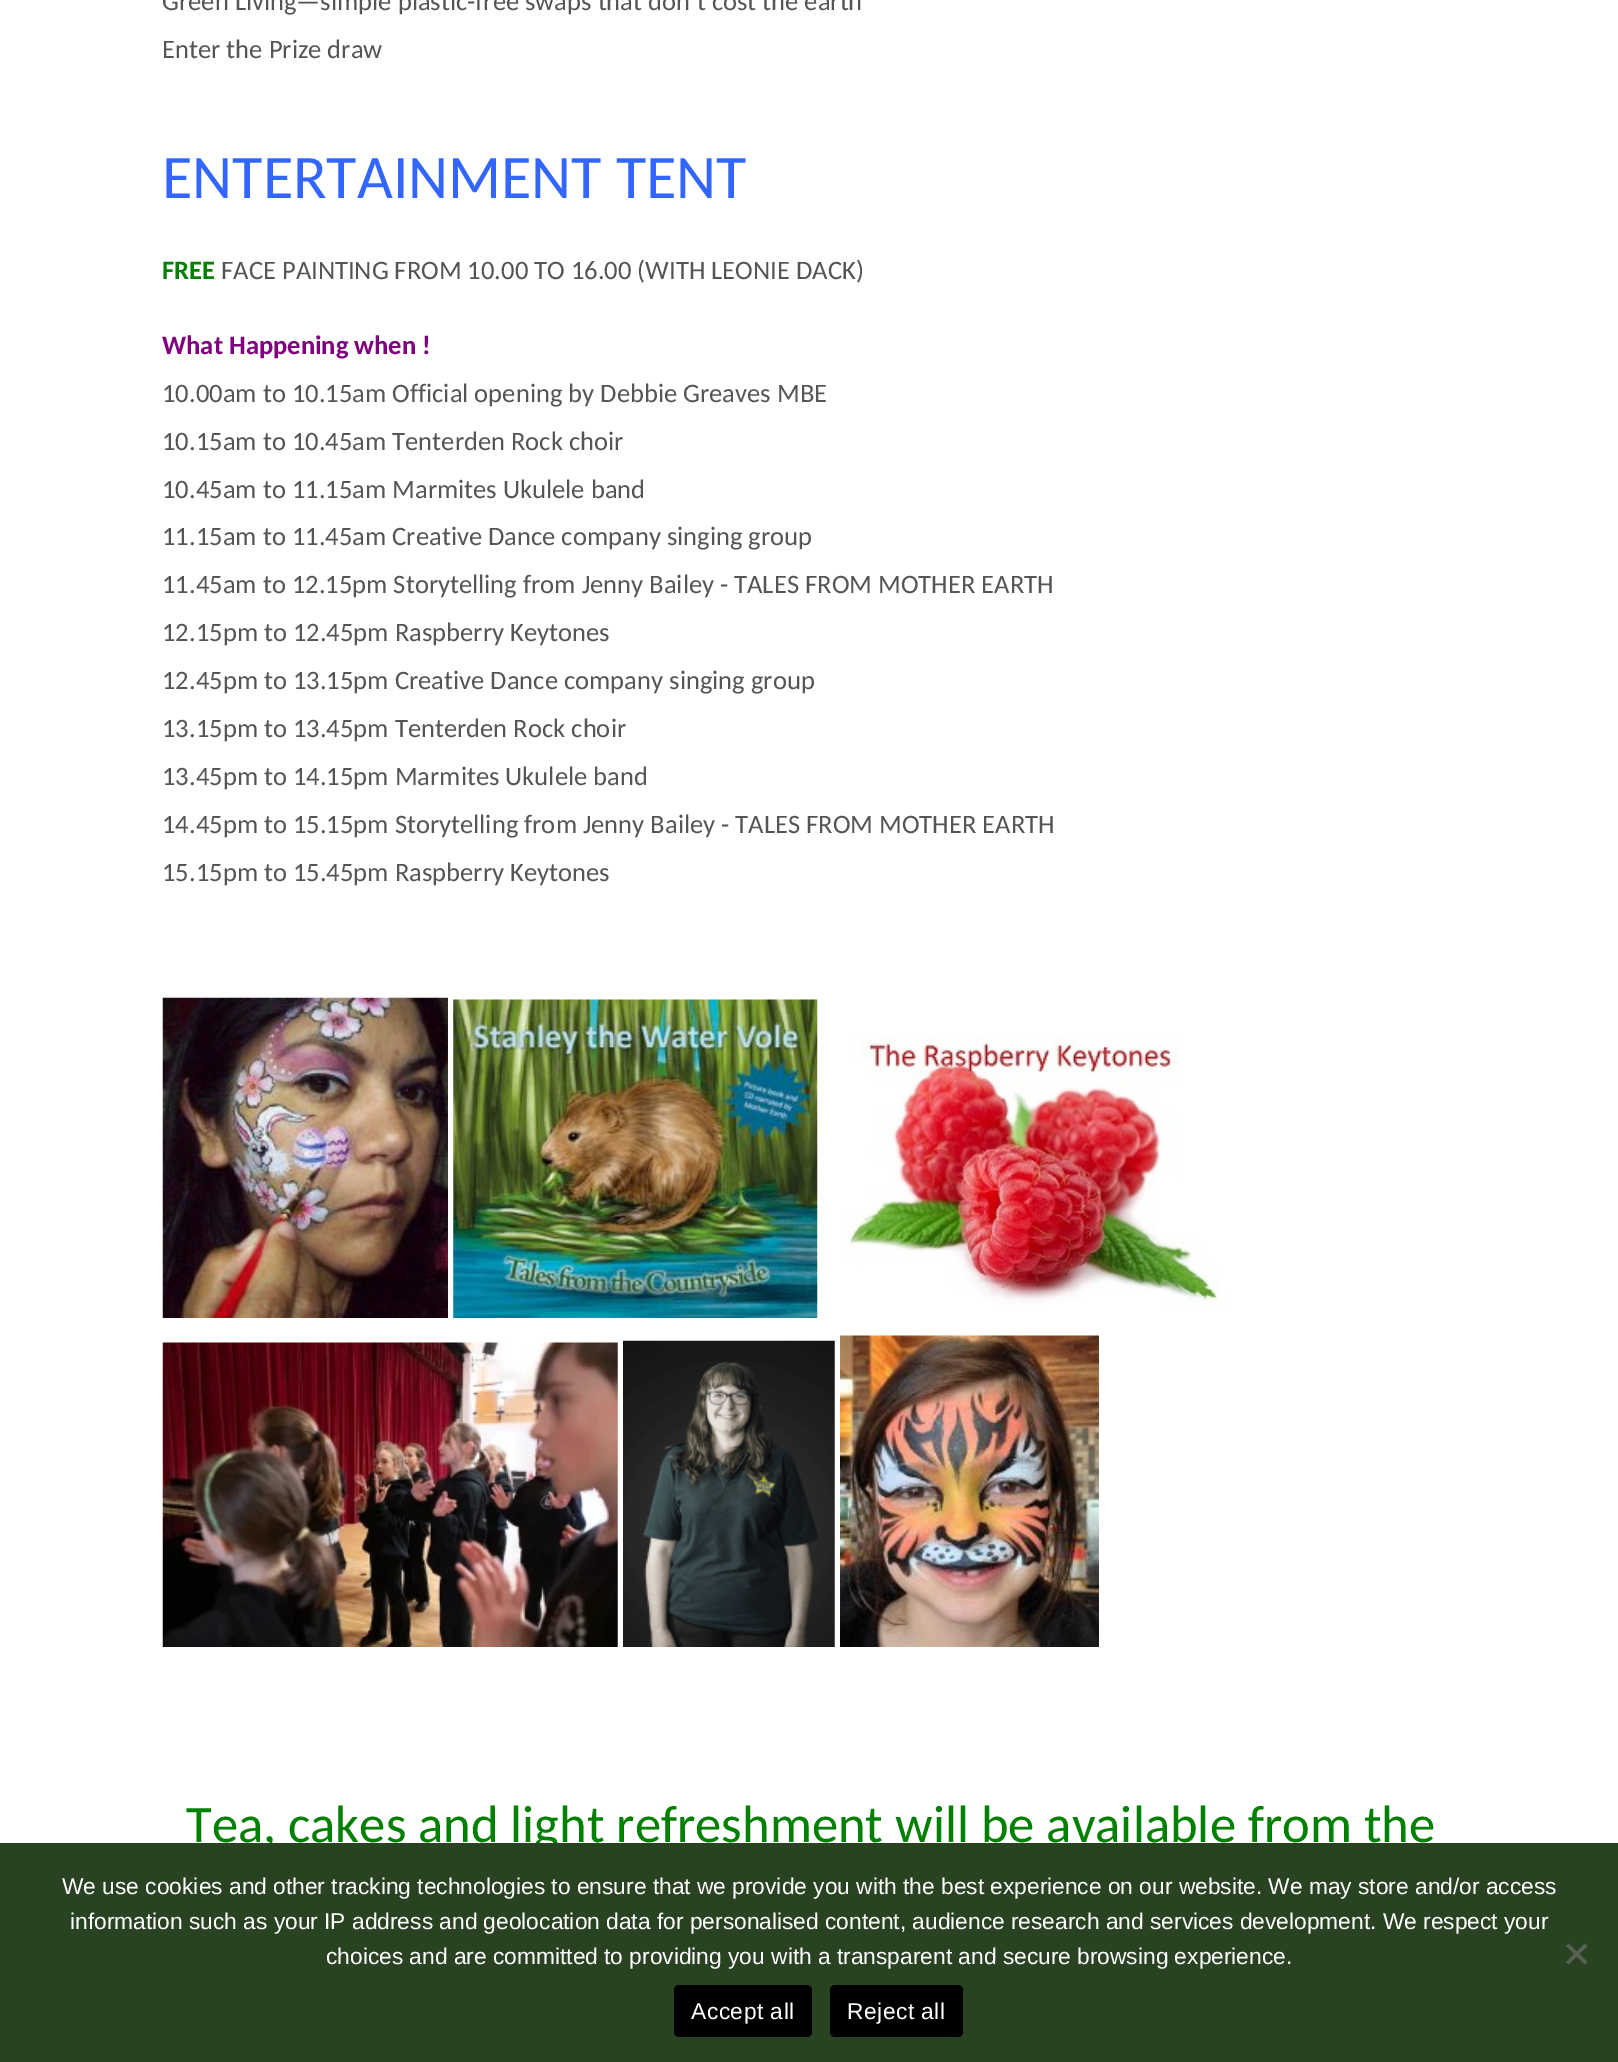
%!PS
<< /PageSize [1618 2062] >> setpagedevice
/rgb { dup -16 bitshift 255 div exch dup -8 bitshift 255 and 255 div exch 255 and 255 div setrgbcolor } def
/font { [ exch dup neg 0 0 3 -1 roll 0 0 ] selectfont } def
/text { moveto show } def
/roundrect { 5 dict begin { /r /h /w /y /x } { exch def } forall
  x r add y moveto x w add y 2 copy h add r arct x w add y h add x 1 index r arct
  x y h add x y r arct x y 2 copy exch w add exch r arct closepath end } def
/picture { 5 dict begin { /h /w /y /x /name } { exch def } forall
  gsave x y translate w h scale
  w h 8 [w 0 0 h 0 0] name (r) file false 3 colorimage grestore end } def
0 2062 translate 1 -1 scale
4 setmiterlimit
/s1 { /Carlito-Regular 26.6 font 16#555555 rgb } def
/s2 { /Carlito-Regular 62 font 16#3366FF rgb } def
/s3 { /Carlito-Bold 26.6 font 16#008000 rgb } def
/s4 { /Carlito-Bold 26.6 font 16#800080 rgb } def
/s5 { /Carlito-Regular 52.6 font 16#008000 rgb } def
/s6 { /LiberationSans-Regular 22.75 font 16#FFFFFF rgb } def
16#FFFFFF rgb
0 0 1618 2062 rectfill
s1
(Green Living—simple plastic-free swaps that don’t cost the earth) 162 10 text
(Enter the Prize draw) 162 58 text
s2
(ENTERTAINMENT TENT) 162 198 text
s3
(FREE) 162 279 text
s1
(FACE PAINTING FROM 10.00 TO 16.00 \(WITH LEONIE DACK\)) 221 279 text
s4
(What Happening when !) 162 354 text
s1
(10.00am to 10.15am Official opening by Debbie Greaves MBE) 162 402 text
(10.15am to 10.45am Tenterden Rock choir) 162 450 text
(10.45am to 11.15am Marmites Ukulele band) 162 498 text
(11.15am to 11.45am Creative Dance company singing group) 162 545 text
(11.45am to 12.15pm Storytelling from Jenny Bailey - TALES FROM MOTHER EARTH) 162 593 text
(12.15pm to 12.45pm Raspberry Keytones) 162 641 text
(12.45pm to 13.15pm Creative Dance company singing group) 162 689 text
(13.15pm to 13.45pm Tenterden Rock choir) 162 737 text
(13.45pm to 14.15pm Marmites Ukulele band) 162 785 text
(14.45pm to 15.15pm Storytelling from Jenny Bailey - TALES FROM MOTHER EARTH) 162 833 text
(15.15pm to 15.45pm Raspberry Keytones) 162 881 text
(pic1.raw) 162 997 286 321 picture
(pic2.raw) 453 999 365 319 picture
(pic3.raw) 847 1034 378 271 picture
(pic4.raw) 162 1342 456 305 picture
(pic5.raw) 623 1340 212 307 picture
(pic6.raw) 840 1335 259 312 picture
s5
(Tea, cakes and light refreshment will be available from the) 186 1842 text
16#294222 rgb
0 1843 1618 219 rectfill
s6
(We use cookies and other tracking technologies to ensure that we provide you with the best experience on our website. We may store and/or access) 62 1894 text
(information such as your IP address and geolocation data for personalised content, audience research and services development. We respect your) 70 1929 text
(choices and are committed to providing you with a transparent and secure browsing experience.) 326 1964 text
16#556151 rgb
1585 1943.5 moveto 1587.5 1946 lineto 1568.5 1964.5 lineto 1566 1962 lineto closepath fill
1566 1946 moveto 1568.5 1943.5 lineto 1587.5 1962 lineto 1585 1964.5 lineto closepath fill
16#000000 rgb
674 1985 138 52 5 roundrect fill
16#FFFFFF rgb
691 2019 moveto 0.5 0 (Accept all) ashow
16#000000 rgb
830 1985 133 52 5 roundrect fill
16#FFFFFF rgb
847 2019 moveto 0.5 0 (Reject all) ashow
showpage
